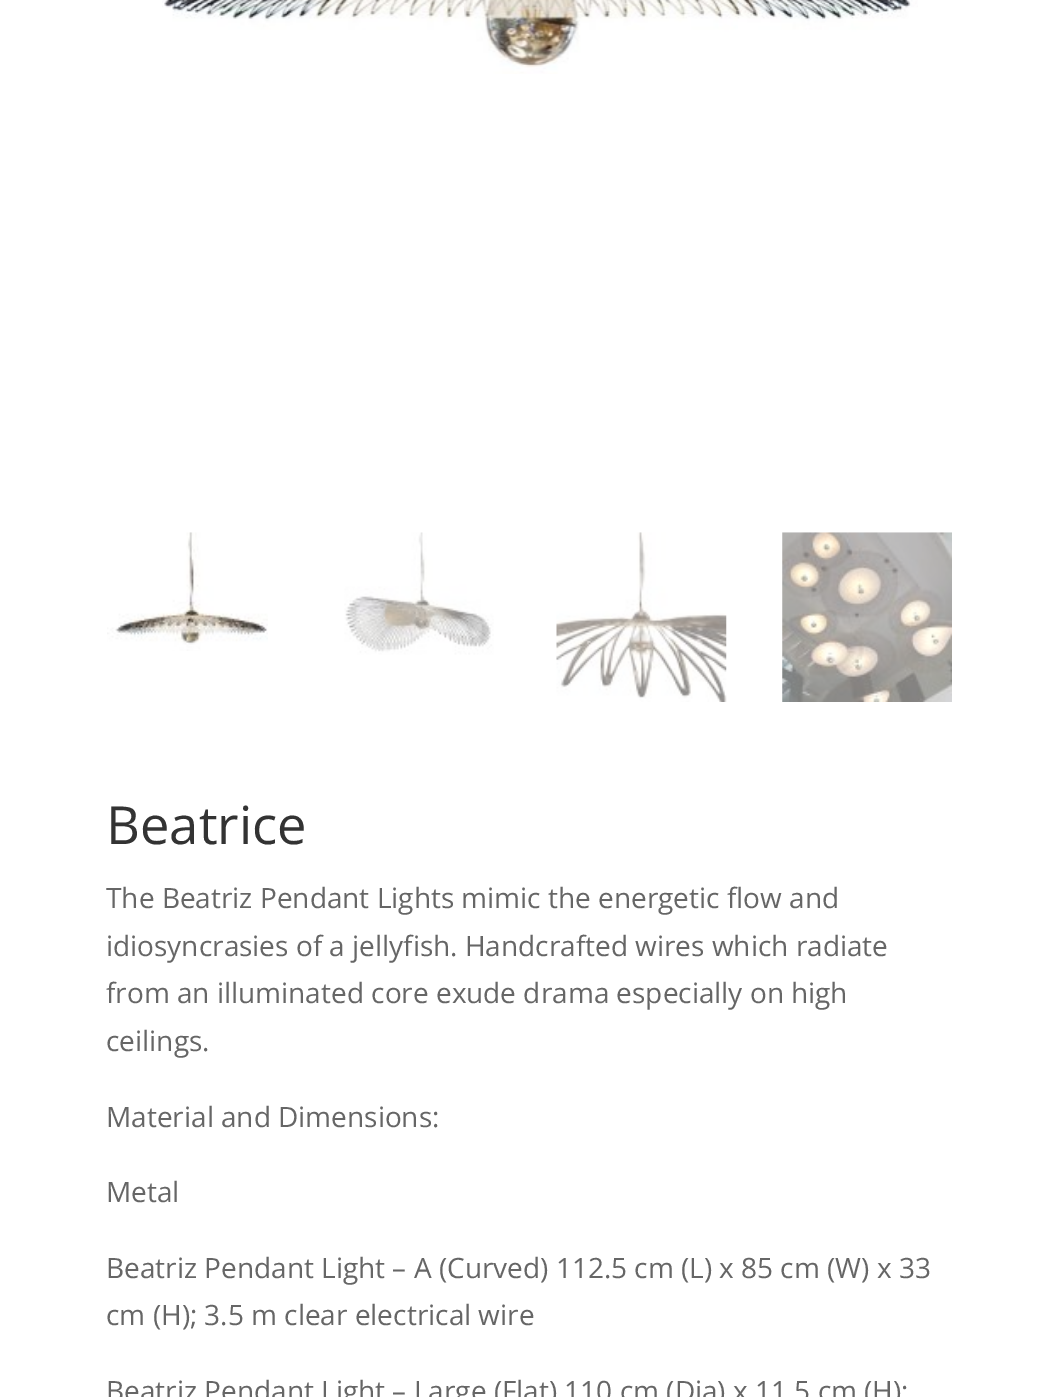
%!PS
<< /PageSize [1056 1397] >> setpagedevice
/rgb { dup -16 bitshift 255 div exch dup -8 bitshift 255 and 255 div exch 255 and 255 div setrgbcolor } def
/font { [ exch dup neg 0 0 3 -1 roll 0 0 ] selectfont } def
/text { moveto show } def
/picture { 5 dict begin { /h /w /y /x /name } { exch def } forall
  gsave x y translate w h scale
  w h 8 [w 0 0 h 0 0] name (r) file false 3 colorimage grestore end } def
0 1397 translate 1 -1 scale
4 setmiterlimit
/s1 { /OpenSans-Regular 52.5 font 16#333333 rgb } def
/s2 { /OpenSans-Regular 28 font 16#666666 rgb } def
16#FFFFFF rgb
0 0 1056 1397 rectfill
(pic1.raw) 162 0 756 74 picture
(pic2.raw) 107 532 161 119 picture
(pic3.raw) 344 532 150 123 picture
(pic4.raw) 556 532 171 170 picture
(pic5.raw) 782 532 170 170 picture
s1
(Beatrice) 106 844 text
s2
(The Beatriz Pendant Lights mimic the energetic flow and) 106 908 text
(idiosyncrasies of a jellyfish. Handcrafted wires which radiate) 106 956 text
(from an illuminated core exude drama especially on high) 106 1003 text
(ceilings.) 106 1051 text
(Material and Dimensions:) 106 1127 text
(Metal) 106 1202 text
(Beatriz Pendant Light – A \(Curved\) 112.5 cm \(L\) x 85 cm \(W\) x 33) 106 1278 text
(cm \(H\); 3.5 m clear electrical wire) 106 1325 text
(Beatriz Pendant Light – Large \(Flat\) 110 cm \(Dia\) x 11.5 cm \(H\);) 106 1401 text
showpage
